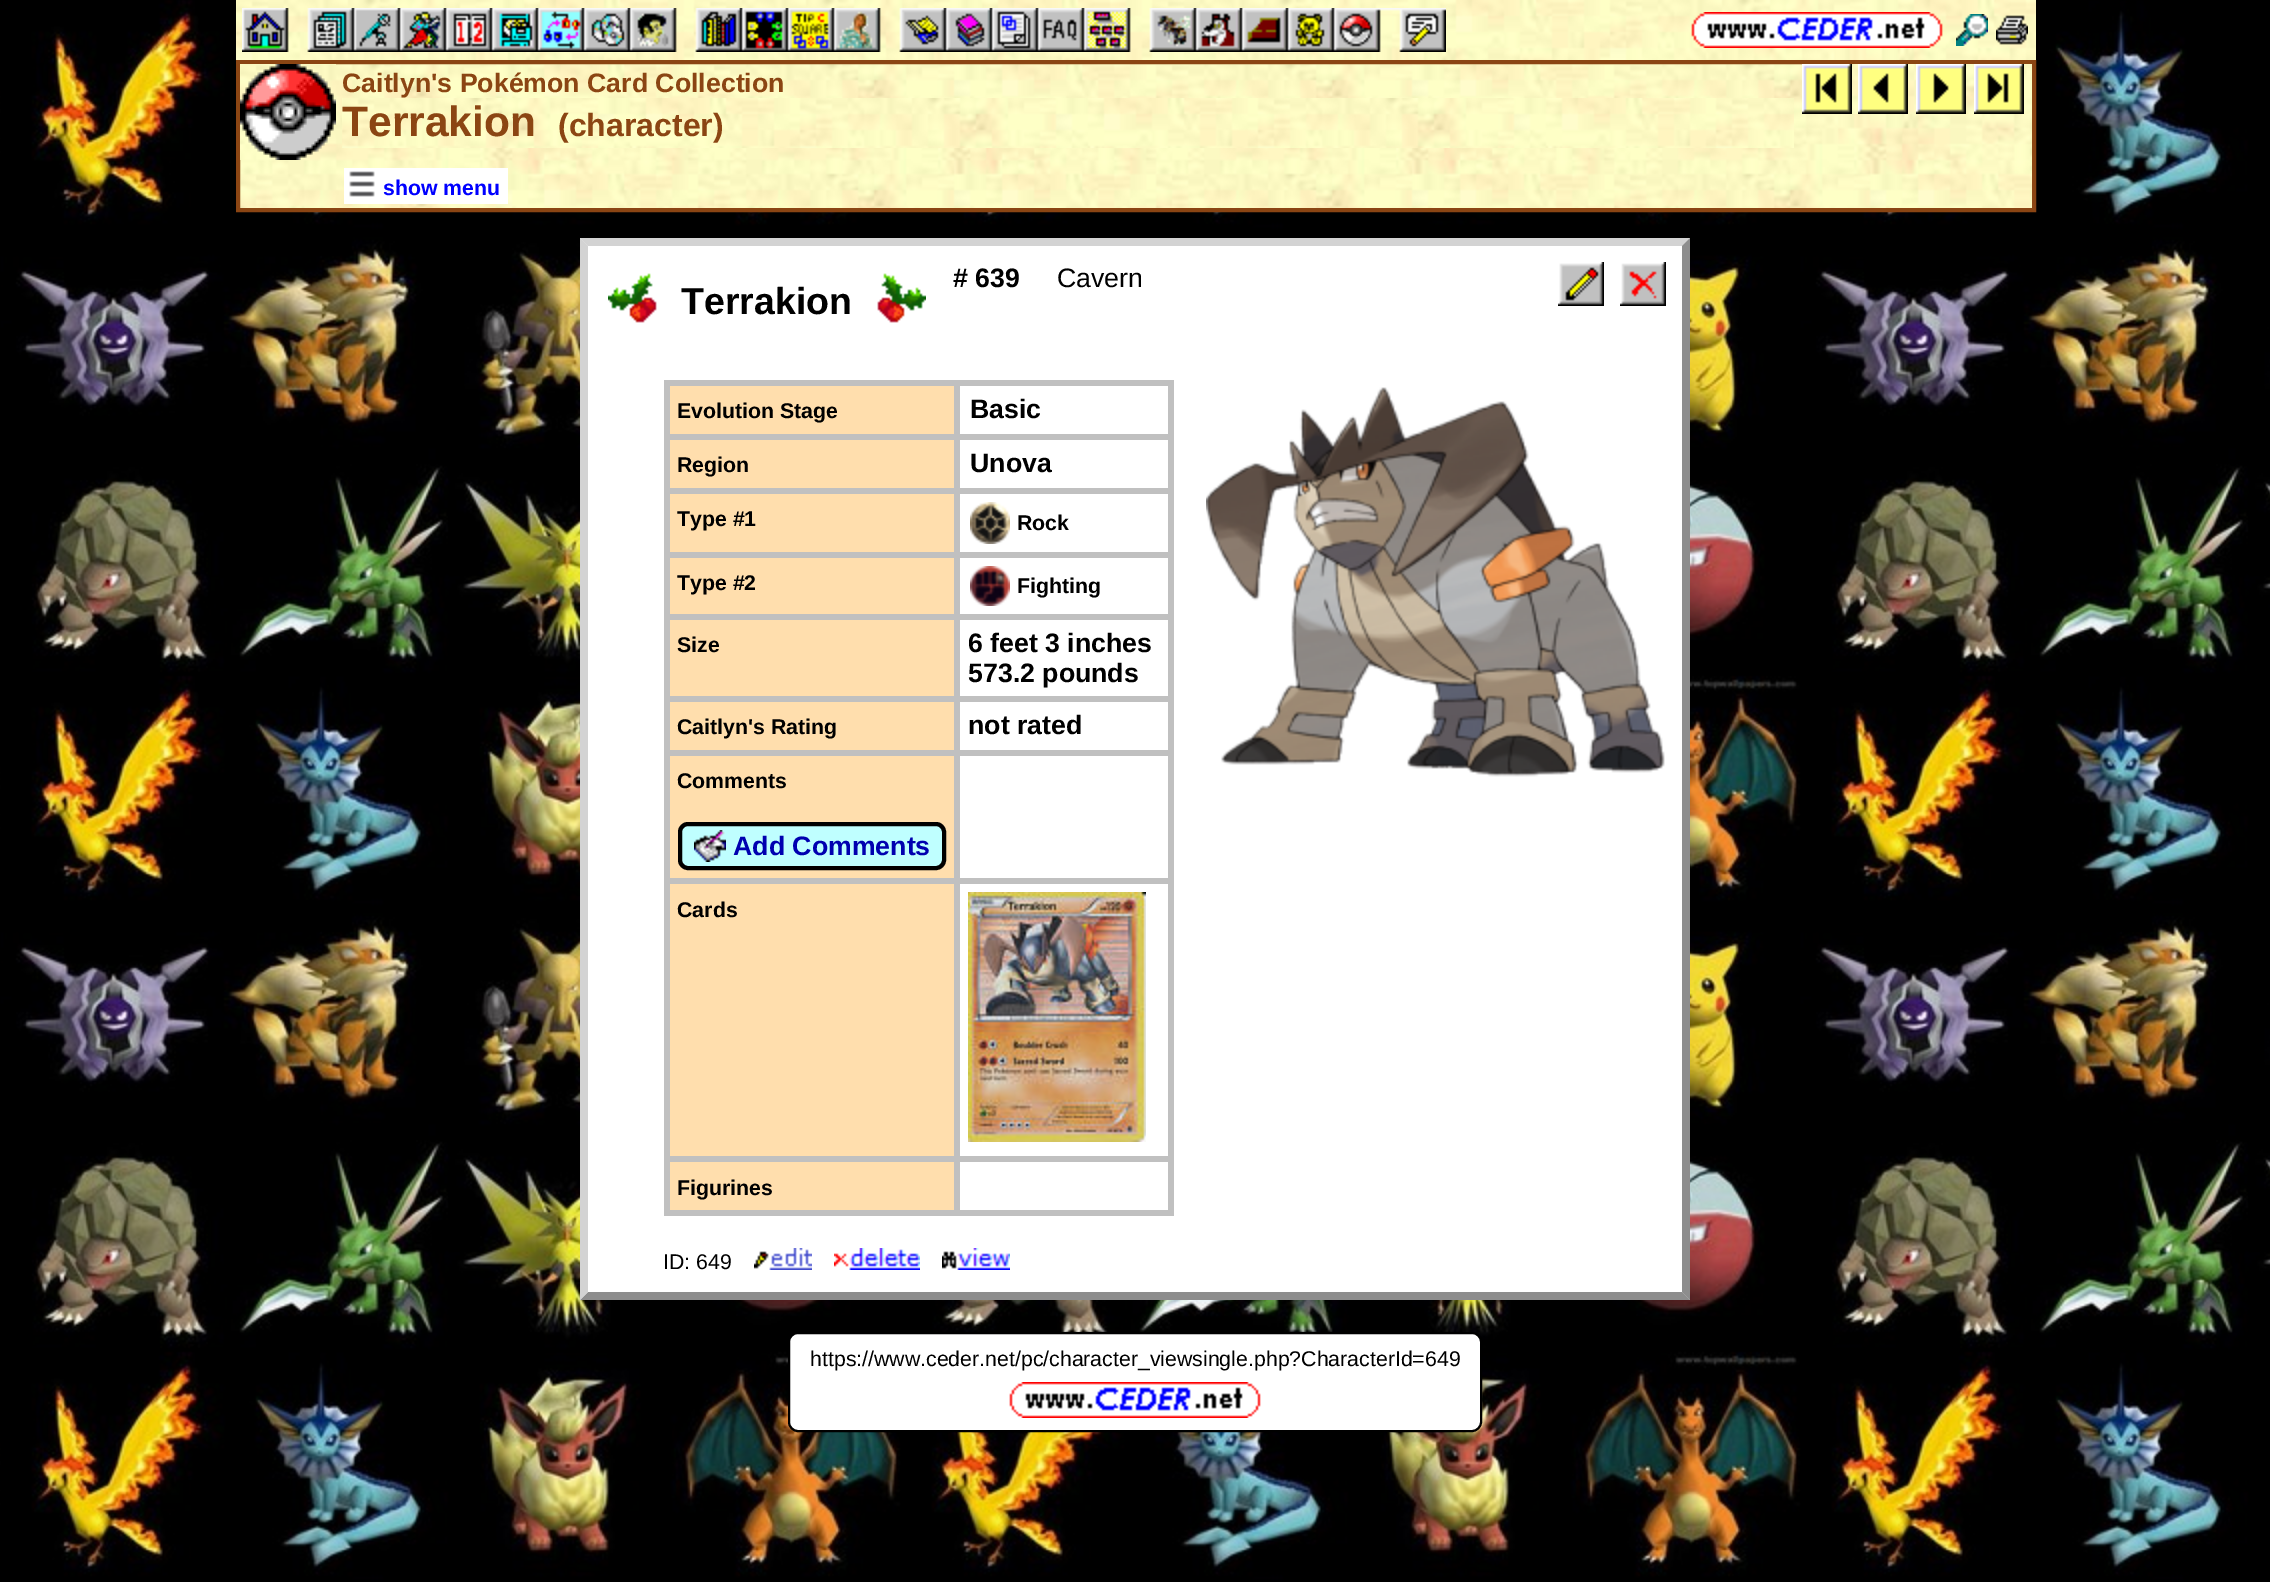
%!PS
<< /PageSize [2270 1582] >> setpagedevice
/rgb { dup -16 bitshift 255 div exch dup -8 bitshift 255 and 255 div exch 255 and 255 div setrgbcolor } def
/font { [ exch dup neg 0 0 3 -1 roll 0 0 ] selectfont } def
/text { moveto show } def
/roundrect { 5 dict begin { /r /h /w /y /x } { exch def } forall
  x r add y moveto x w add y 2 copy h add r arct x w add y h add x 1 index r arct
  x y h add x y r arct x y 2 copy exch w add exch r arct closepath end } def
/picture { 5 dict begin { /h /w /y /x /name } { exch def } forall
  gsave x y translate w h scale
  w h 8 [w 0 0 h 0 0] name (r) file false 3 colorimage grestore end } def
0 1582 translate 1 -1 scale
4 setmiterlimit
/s1 { /LiberationSans-Bold 26.7 font 16#8B4513 rgb } def
/s2 { /LiberationSans-Bold 42.5 font 16#8B4513 rgb } def
/s3 { /LiberationSans-Bold 32 font 16#8B4513 rgb } def
/s4 { /LiberationSans-Bold 21.3 font 16#0000FF rgb } def
/s5 { /LiberationSans-Bold 26.7 font 16#000000 rgb } def
/s6 { /LiberationSans-Regular 26.7 font 16#000000 rgb } def
/s7 { /LiberationSans-Bold 37.5 font 16#000000 rgb } def
/s8 { /LiberationSans-Bold 21.3 font 16#000000 rgb } def
/s9 { /LiberationSans-Bold 26.7 font 16#0000B0 rgb } def
/s10 { /LiberationSans-Regular 21.3 font 16#000000 rgb } def
16#FFFFFF rgb
0 0 2270 1582 rectfill
(pic1.raw) 0 0 2270 1582 picture
(pic2.raw) 236 0 1800 60 picture
(pic3.raw) 1691 12 252 36 picture
(pic4.raw) 1956 14 32 32 picture
(pic5.raw) 1996 15 32 30 picture
(pic6.raw) 242 8 1204 44 picture
(pic7.raw) 240 64 1792 144 picture
16#8B4513 rgb
4 setlinewidth
238 62 1796 148 rectstroke
(pic8.raw) 240 64 96 96 picture
s1
(Caitlyn's Pokémon Card Collection) 342 92 text
(pic9.raw) 342 98 1452 50 picture
s2
(Terrakion) 342 136 text
s3
(\(character\)) 558 136 text
(pic10.raw) 1852 64 180 50 picture
(pic11.raw) 1802 64 50 50 picture
(pic12.raw) 1858 64 50 50 picture
(pic13.raw) 1916 64 50 50 picture
(pic14.raw) 1974 64 50 50 picture
16#FFFFFF rgb
344 168 164 36 rectfill
(pic15.raw) 349 171 26 26 picture
s4
(show menu) 383 195 text
16#FFFFFF rgb
580 238 1110 1062 rectfill
16#D3D3D3 rgb
580 238 moveto 1690 238 lineto 1682 246 lineto 588 246 lineto closepath fill
16#8D8D8D rgb
1690 238 moveto 1690 1300 lineto 1682 1292 lineto 1682 246 lineto closepath fill
1690 1300 moveto 580 1300 lineto 588 1292 lineto 1682 1292 lineto closepath fill
16#D3D3D3 rgb
580 1300 moveto 580 238 lineto 588 246 lineto 588 1292 lineto closepath fill
s5
(# 639) 953 287 text
s6
(Cavern) 1057 287 text
(pic16.raw) 608 273 49 50 picture
s7
(Terrakion) 681 314 text
(pic17.raw) 877 273 49 50 picture
(pic18.raw) 1558 262 46 44 picture
(pic19.raw) 1620 262 46 44 picture
16#C0C0C0 rgb
664 380 510 6 rectfill
1168 380 6 836 rectfill
664 1210 510 6 rectfill
664 380 6 836 rectfill
16#FFDEAD rgb
670 386 284 48 rectfill
s8
(Evolution Stage) 677 418 text
s5
(Basic) 970 418 text
16#C0C0C0 rgb
664 434 510 6 rectfill
16#FFDEAD rgb
670 440 284 48 rectfill
s8
(Region) 677 472 text
s5
(Unova) 970 472 text
16#C0C0C0 rgb
664 488 510 6 rectfill
16#FFDEAD rgb
670 494 284 58 rectfill
s8
(Type #1) 677 526 text
(pic20.raw) 970 502 40 42 picture
(Rock) 1017 530 text
16#C0C0C0 rgb
664 552 510 6 rectfill
16#FFDEAD rgb
670 558 284 56 rectfill
s8
(Type #2) 677 590 text
(pic21.raw) 970 566 40 40 picture
(Fighting) 1017 593 text
16#C0C0C0 rgb
664 614 510 6 rectfill
16#FFDEAD rgb
670 620 284 76 rectfill
s8
(Size) 677 652 text
s5
(6 feet 3 inches) 968 652 text
(573.2 pounds) 968 682 text
16#C0C0C0 rgb
664 696 510 6 rectfill
16#FFDEAD rgb
670 702 284 48 rectfill
s8
(Caitlyn's Rating) 677 734 text
s5
(not rated) 968 734 text
16#C0C0C0 rgb
664 750 510 6 rectfill
16#FFDEAD rgb
670 756 284 122 rectfill
s8
(Comments) 677 788 text
16#BFFFFF rgb
680 824 264 44 8 roundrect gsave fill grestore
16#000000 rgb
stroke
(pic22.raw) 694 830 32 32 picture
s9
(Add Comments) 733 855 text
16#C0C0C0 rgb
664 878 510 6 rectfill
16#FFDEAD rgb
670 884 284 272 rectfill
s8
(Cards) 677 917 text
(pic23.raw) 968 892 178 250 picture
16#C0C0C0 rgb
664 1156 510 6 rectfill
16#FFDEAD rgb
670 1162 284 48 rectfill
s8
(Figurines) 677 1195 text
16#C0C0C0 rgb
954 380 6 836 rectfill
(pic24.raw) 1206 387 459 390 picture
s10
(ID: 649) 663 1269 text
(pic25.raw) 754 1248 58 22 picture
(pic26.raw) 834 1248 86 22 picture
(pic27.raw) 942 1248 68 22 picture
16#FFFFFF rgb
789 1333 692 98 9 roundrect gsave fill grestore
16#000000 rgb
2 setlinewidth
stroke
(https://www.ceder.net/pc/character_viewsingle.php?CharacterId=649) 810 1366 text
(pic28.raw) 1009 1382 252 36 picture
showpage
